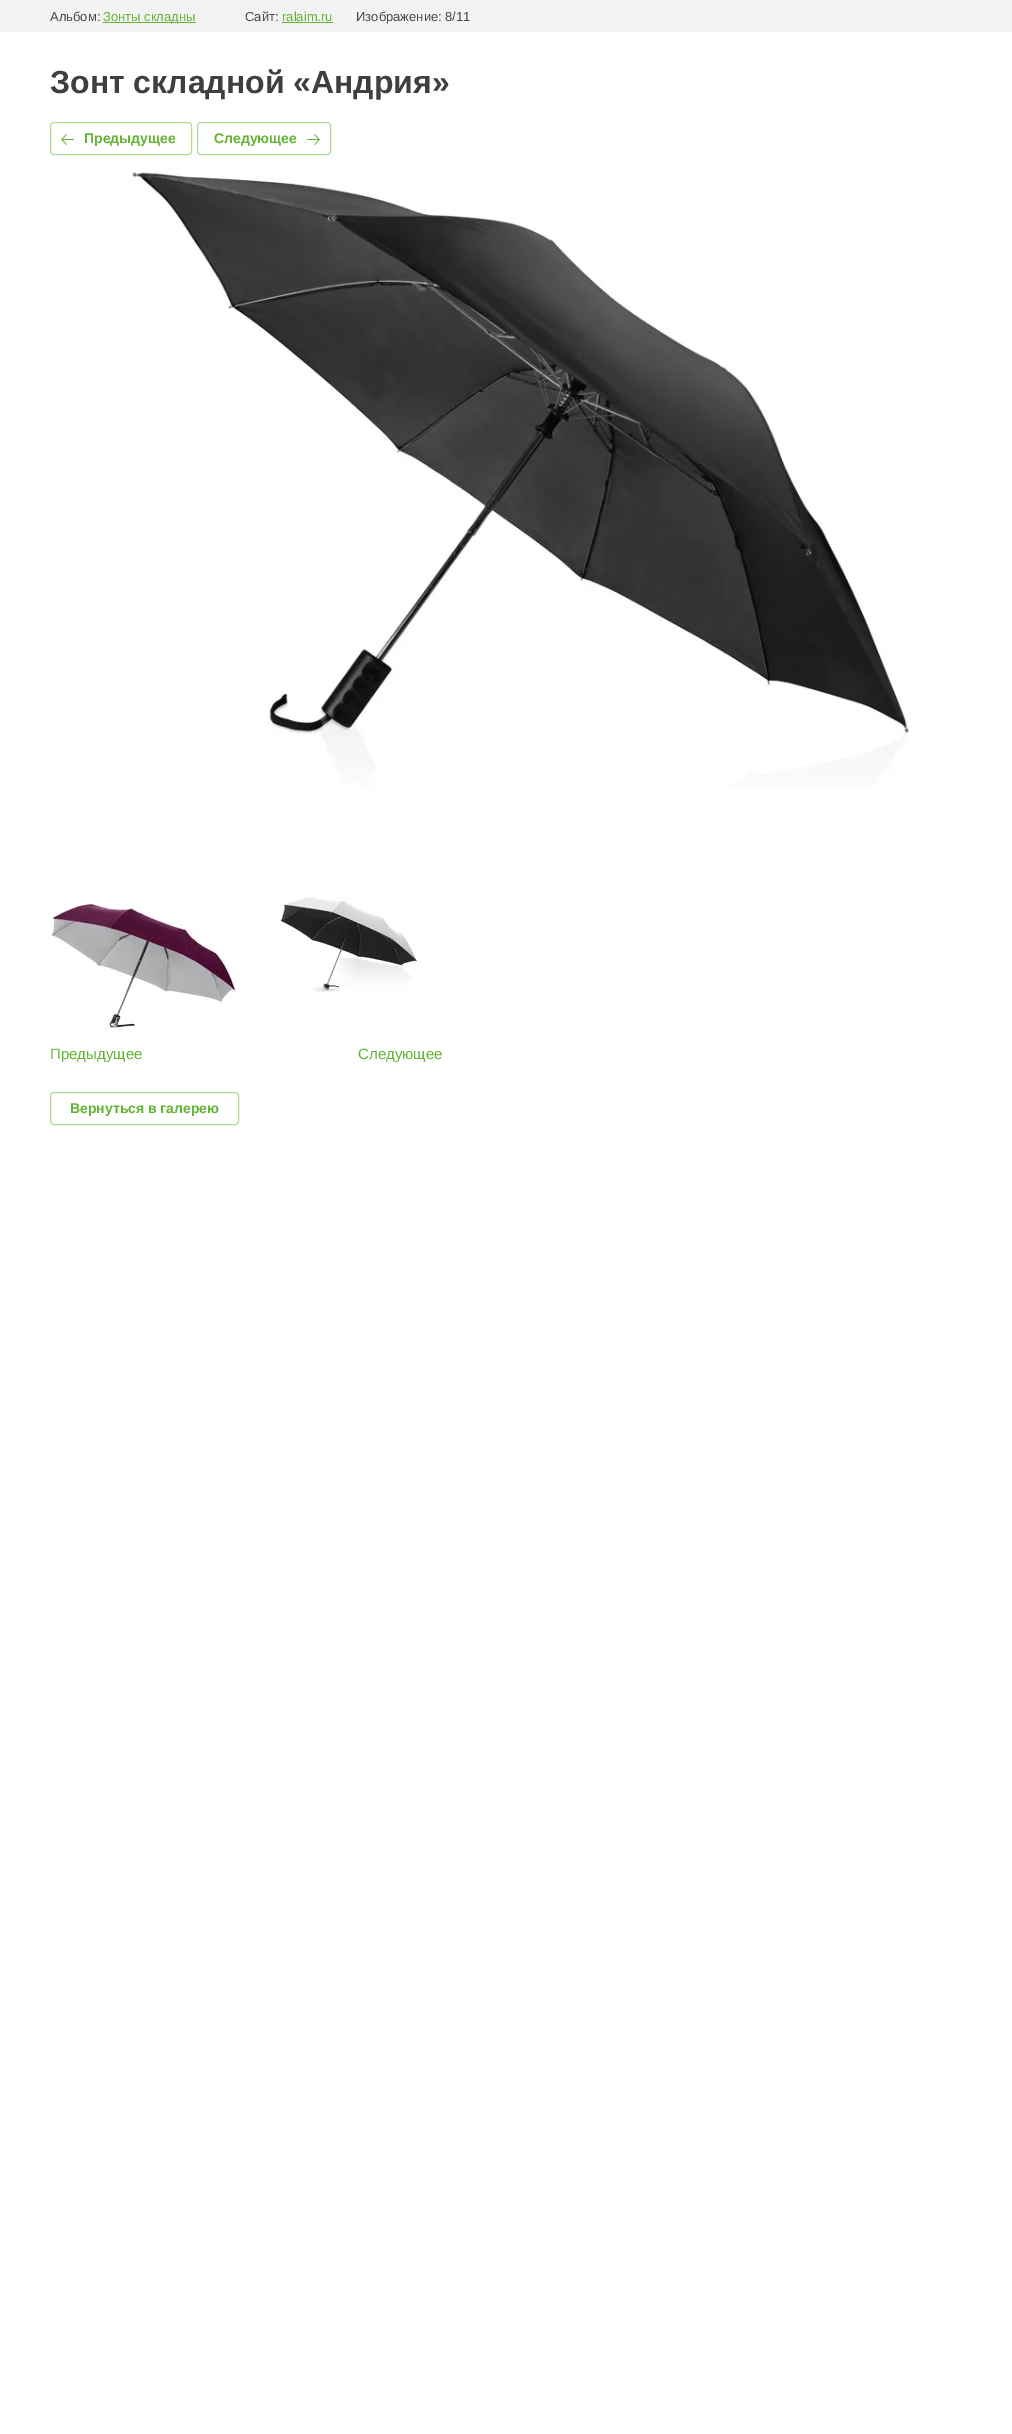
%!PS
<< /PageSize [1012 2434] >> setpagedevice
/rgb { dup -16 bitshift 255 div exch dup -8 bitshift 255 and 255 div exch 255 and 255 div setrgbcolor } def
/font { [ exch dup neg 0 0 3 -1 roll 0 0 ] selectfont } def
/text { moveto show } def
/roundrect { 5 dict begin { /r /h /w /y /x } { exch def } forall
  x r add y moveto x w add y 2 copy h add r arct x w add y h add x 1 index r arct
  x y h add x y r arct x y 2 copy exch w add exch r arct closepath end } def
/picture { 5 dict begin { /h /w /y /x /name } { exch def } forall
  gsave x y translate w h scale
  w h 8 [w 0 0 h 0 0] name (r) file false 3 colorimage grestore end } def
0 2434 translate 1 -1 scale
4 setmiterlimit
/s1 { /LiberationSans-Regular 13 font 16#484848 rgb } def
/s2 { /LiberationSans-Regular 13 font 16#63B435 rgb } def
/s3 { /LiberationSans-Bold 32 font 16#3F3F3F rgb } def
/s4 { /LiberationSans-Bold 14 font 16#63B435 rgb } def
/s5 { /LiberationSans-Regular 15 font 16#63B435 rgb } def
16#FFFFFF rgb
0 0 1012 2434 rectfill
16#F3F3F3 rgb
0 0 1012 32 rectfill
s1
(Альбом:) 50 21 text
16#63B435 rgb
103 22 93 1 rectfill
(Зонты складны) 103 21 text
s1
(Сайт:) 245 21 text
s2
(ralaim.ru) 282 21 text
282 22 51 1 rectfill
s1
(Изображение: 8/11) 356 21 text
s3
(Зонт складной «Андрия») 50 93 text
16#B1DA9A rgb
50.5 122.5 141 32 3.5 roundrect stroke
(pic1.raw) 61 134 13 11 picture
s4
(Предыдущее) 84 143 text
16#B1DA9A rgb
197.5 122.5 133 32 3.5 roundrect stroke
s4
(Следующее) 214 143 text
(pic2.raw) 307 134 13 11 picture
(pic3.raw) 132 172 777 616 picture
(pic4.raw) 50 903 186 125 picture
s5
(Предыдущее) 50 1059 text
(pic5.raw) 280 897 140 95 picture
(Следующее) 358 1059 text
16#B1DA9A rgb
50.5 1092.5 188 32 3.5 roundrect stroke
s4
(Вернуться в галерею) 70 1113 text
showpage
